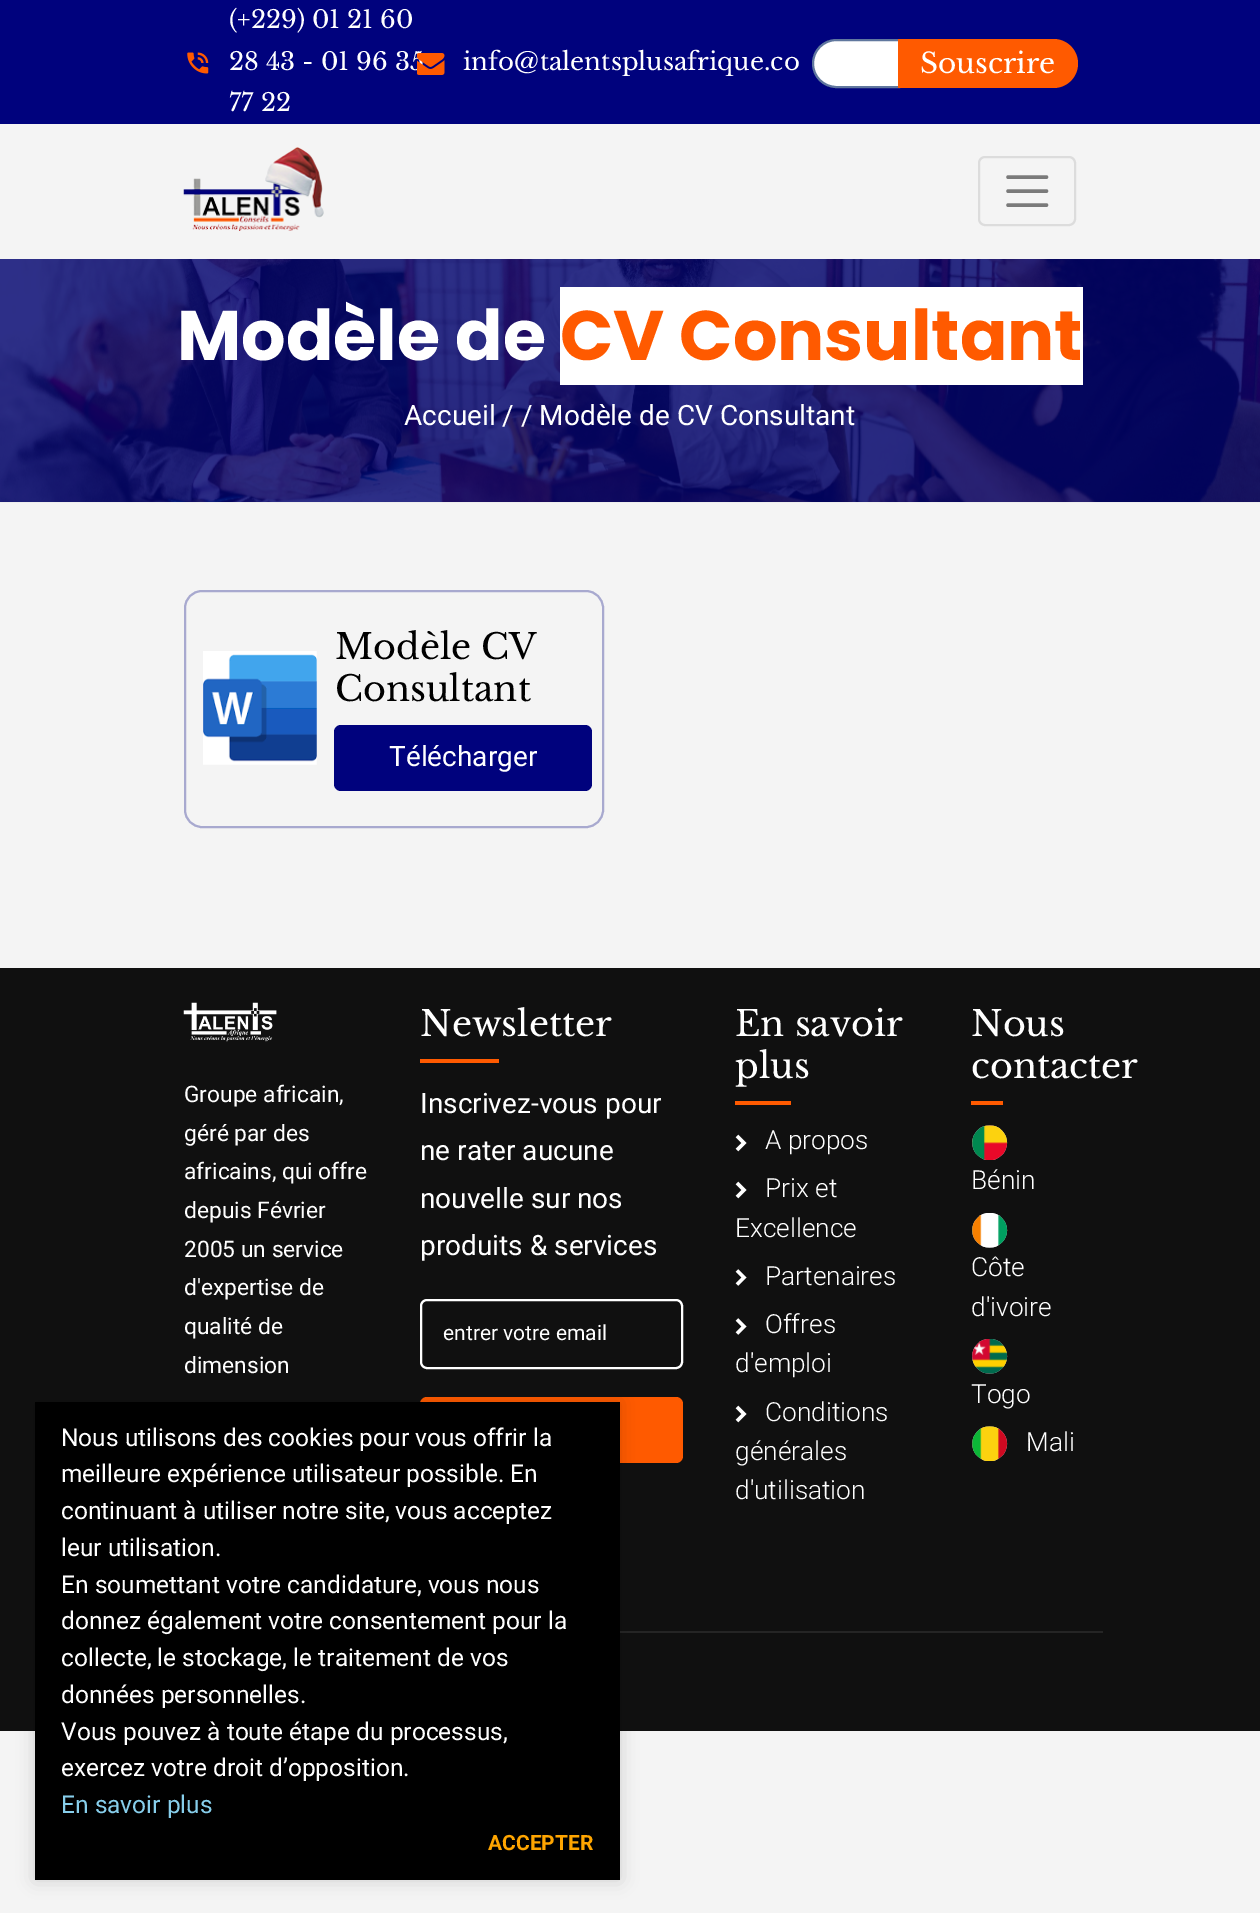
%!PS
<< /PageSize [1260 1913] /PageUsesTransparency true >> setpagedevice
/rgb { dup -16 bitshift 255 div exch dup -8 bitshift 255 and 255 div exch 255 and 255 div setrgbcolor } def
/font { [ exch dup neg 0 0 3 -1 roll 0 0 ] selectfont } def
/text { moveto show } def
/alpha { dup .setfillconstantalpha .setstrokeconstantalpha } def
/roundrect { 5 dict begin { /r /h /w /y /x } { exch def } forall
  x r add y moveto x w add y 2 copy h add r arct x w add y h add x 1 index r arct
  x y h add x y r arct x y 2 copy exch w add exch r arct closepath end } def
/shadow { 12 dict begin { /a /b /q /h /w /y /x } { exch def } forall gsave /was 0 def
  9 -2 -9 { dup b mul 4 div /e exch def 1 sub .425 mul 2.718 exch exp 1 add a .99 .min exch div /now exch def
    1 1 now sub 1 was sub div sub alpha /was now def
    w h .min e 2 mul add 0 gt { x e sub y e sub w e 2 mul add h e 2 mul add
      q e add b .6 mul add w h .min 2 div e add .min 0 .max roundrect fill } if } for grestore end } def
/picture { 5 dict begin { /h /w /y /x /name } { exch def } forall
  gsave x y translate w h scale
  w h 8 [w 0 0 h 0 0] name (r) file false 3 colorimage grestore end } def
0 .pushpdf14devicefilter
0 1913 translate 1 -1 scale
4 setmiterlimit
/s1 { /LibreBaskerville-Regular 24.5 font 16#FFFFFF rgb } def
/s2 { /LibreBaskerville-Regular 28 font 16#FFFFFF rgb } def
/s3 { /Poppins-Bold 70 font 16#FFFFFF rgb } def
/s4 { /Poppins-Bold 70 font 16#FF5A00 rgb } def
/s5 { /Roboto-Regular 28 font 16#FFFFFF rgb } def
/s6 { /LibreBaskerville-Regular 35 font 16#000000 rgb } def
/s7 { /Roboto-Regular 22.75 font 16#FFFFFF rgb } def
/s8 { /LibreBaskerville-Regular 35 font 16#FFFFFF rgb } def
/s9 { /Roboto-Regular 21 font 16#FFFFFF rgb } def
/s10 { /Roboto-Light 26.25 font 16#FFFFFF rgb } def
/s11 { /Roboto-Regular 24.5 font 16#FFFFFF rgb } def
/s12 { /Roboto-Regular 24.5 font 16#87CEEB rgb } def
/s13 { /Roboto-Bold 21 font 16#FFA500 rgb } def
16#F4F4F4 rgb
0 0 1260 1913 rectfill
16#00027D rgb
0 0 1260 124 rectfill
(pic1.raw) 187 52 22 22 picture
s1
(\(+229\) 01 21 60) 229 28 text
(28 43 - 01 96 35) 229 70 text
(77 22) 229 111 text
(pic2.raw) 417 53 28 22 picture
(info@talentsplusafrique.co) 463 70 text
836.5 40 moveto 899 40 lineto 899 87 lineto 836.5 87 lineto 823.5 87 813 76.5 813 63.5 curveto 813 50.5 823.5 40 836.5 40 curveto closepath gsave fill grestore
16#60779E rgb
2 setlinewidth
stroke
16#FF5A00 rgb
898 39 moveto 1053.5 39 lineto 1067 39 1078 50 1078 63.5 curveto 1078 77 1067 88 1053.5 88 curveto 898 88 lineto closepath fill
s2
(Souscrire) 920 73 text
(pic3.raw) 183 147 141 84 picture
16#DCDCDC rgb
979 157 96 68 6 roundrect stroke
16#7A7A7A rgb
3.5 setlinewidth
1 setlinecap
1008 177 moveto 1046.5 177 lineto 1008 191 moveto 1046.5 191 lineto 1008 205 moveto 1046.5 205 lineto stroke
(pic4.raw) 0 259 1260 244 picture
s3
(Modèle de) 177 360 text
560 287 523 98 rectfill
s4
(CV Consultant) 560 360 text
s5
(Accueil / / Modèle de CV Consultant) 404 425 text
16#A8A9CF rgb
2 setlinewidth
0 setlinecap
185 591 418 236 17 roundrect stroke
(pic5.raw) 203 651 114 114 picture
s6
(Modèle CV) 335 659 text
(Consultant) 335 701 text
16#00027D rgb
334 725 258 66 7 roundrect fill
s5
(Télécharger) 389 766 text
16#101010 rgb
0 968 1260 763 rectfill
(pic6.raw) 183 1002 94 40 picture
s7
(Groupe africain,) 184 1102 text
(géré par des) 184 1141 text
(africains, qui offre) 184 1179 text
(depuis Février) 184 1218 text
(2005 un service) 184 1257 text
(d'expertise de) 184 1295 text
(qualité de) 184 1334 text
(dimension) 184 1373 text
s8
(Newsletter) 420 1036 text
16#FF5A00 rgb
420 1059 79 4 rectfill
s5
(Inscrivez-vous pour) 420 1113 text
(ne rater aucune) 420 1160 text
(nouvelle sur nos) 420 1208 text
(produits & services) 420 1255 text
421 1300 261 68 6 roundrect stroke
s9
(entrer votre email) 443 1340 text
16#FF5A00 rgb
420 1397 263 66 7 roundrect fill
s8
(En savoir) 735 1036 text
(plus) 735 1078 text
16#FF5A00 rgb
735 1101 56 4 rectfill
16#FFFFFF rgb
3.5 setlinewidth
737 1136 moveto 744 1143 lineto 737 1150 lineto stroke
s10
(A propos) 765 1149 text
737 1183 moveto 744 1190 lineto 737 1197 lineto stroke
(Prix et) 765 1197 text
(Excellence) 735 1237 text
737 1270.5 moveto 744 1277.5 lineto 737 1284.5 lineto stroke
(Partenaires) 765 1285 text
737 1319.5 moveto 744 1326.5 lineto 737 1333.5 lineto stroke
(Offres) 765 1333 text
(d'emploi) 735 1372 text
737 1407 moveto 744 1414 lineto 737 1421 lineto stroke
(Conditions) 765 1421 text
(générales) 735 1460 text
(d'utilisation) 735 1499 text
s8
(Nous) 971 1036 text
(contacter) 971 1078 text
16#FF5A00 rgb
971 1101 32 4 rectfill
(pic7.raw) 972 1125 36 35 picture
s10
(Bénin) 971 1189 text
(pic8.raw) 972 1213 36 35 picture
(Côte) 971 1276 text
(d'ivoire) 971 1316 text
(pic9.raw) 972 1339 36 35 picture
(Togo) 971 1403 text
(pic10.raw) 972 1426 36 35 picture
(Mali) 1026 1451 text
16#252525 rgb
620 1631 483 2 rectfill
16#000000 rgb
35 1402 585 478 0 9 0.15 shadow
35 1402 585 478 rectfill
s11
(Nous utilisons des cookies pour vous offrir la) 61 1446 text
(meilleure expérience utilisateur possible. En) 61 1482 text
(continuant à utiliser notre site, vous acceptez) 61 1519 text
(leur utilisation.) 61 1556 text
(En soumettant votre candidature, vous nous) 61 1593 text
(donnez également votre consentement pour la) 61 1629 text
(collecte, le stockage, le traitement de vos) 61 1666 text
(données personnelles.) 61 1703 text
(Vous pouvez à toute étape du processus,) 61 1740 text
(exercez votre droit d’opposition.) 61 1776 text
s12
(En savoir plus) 61 1813 text
s13
(ACCEPTER) 488 1850 text
.poppdf14devicefilter showpage
